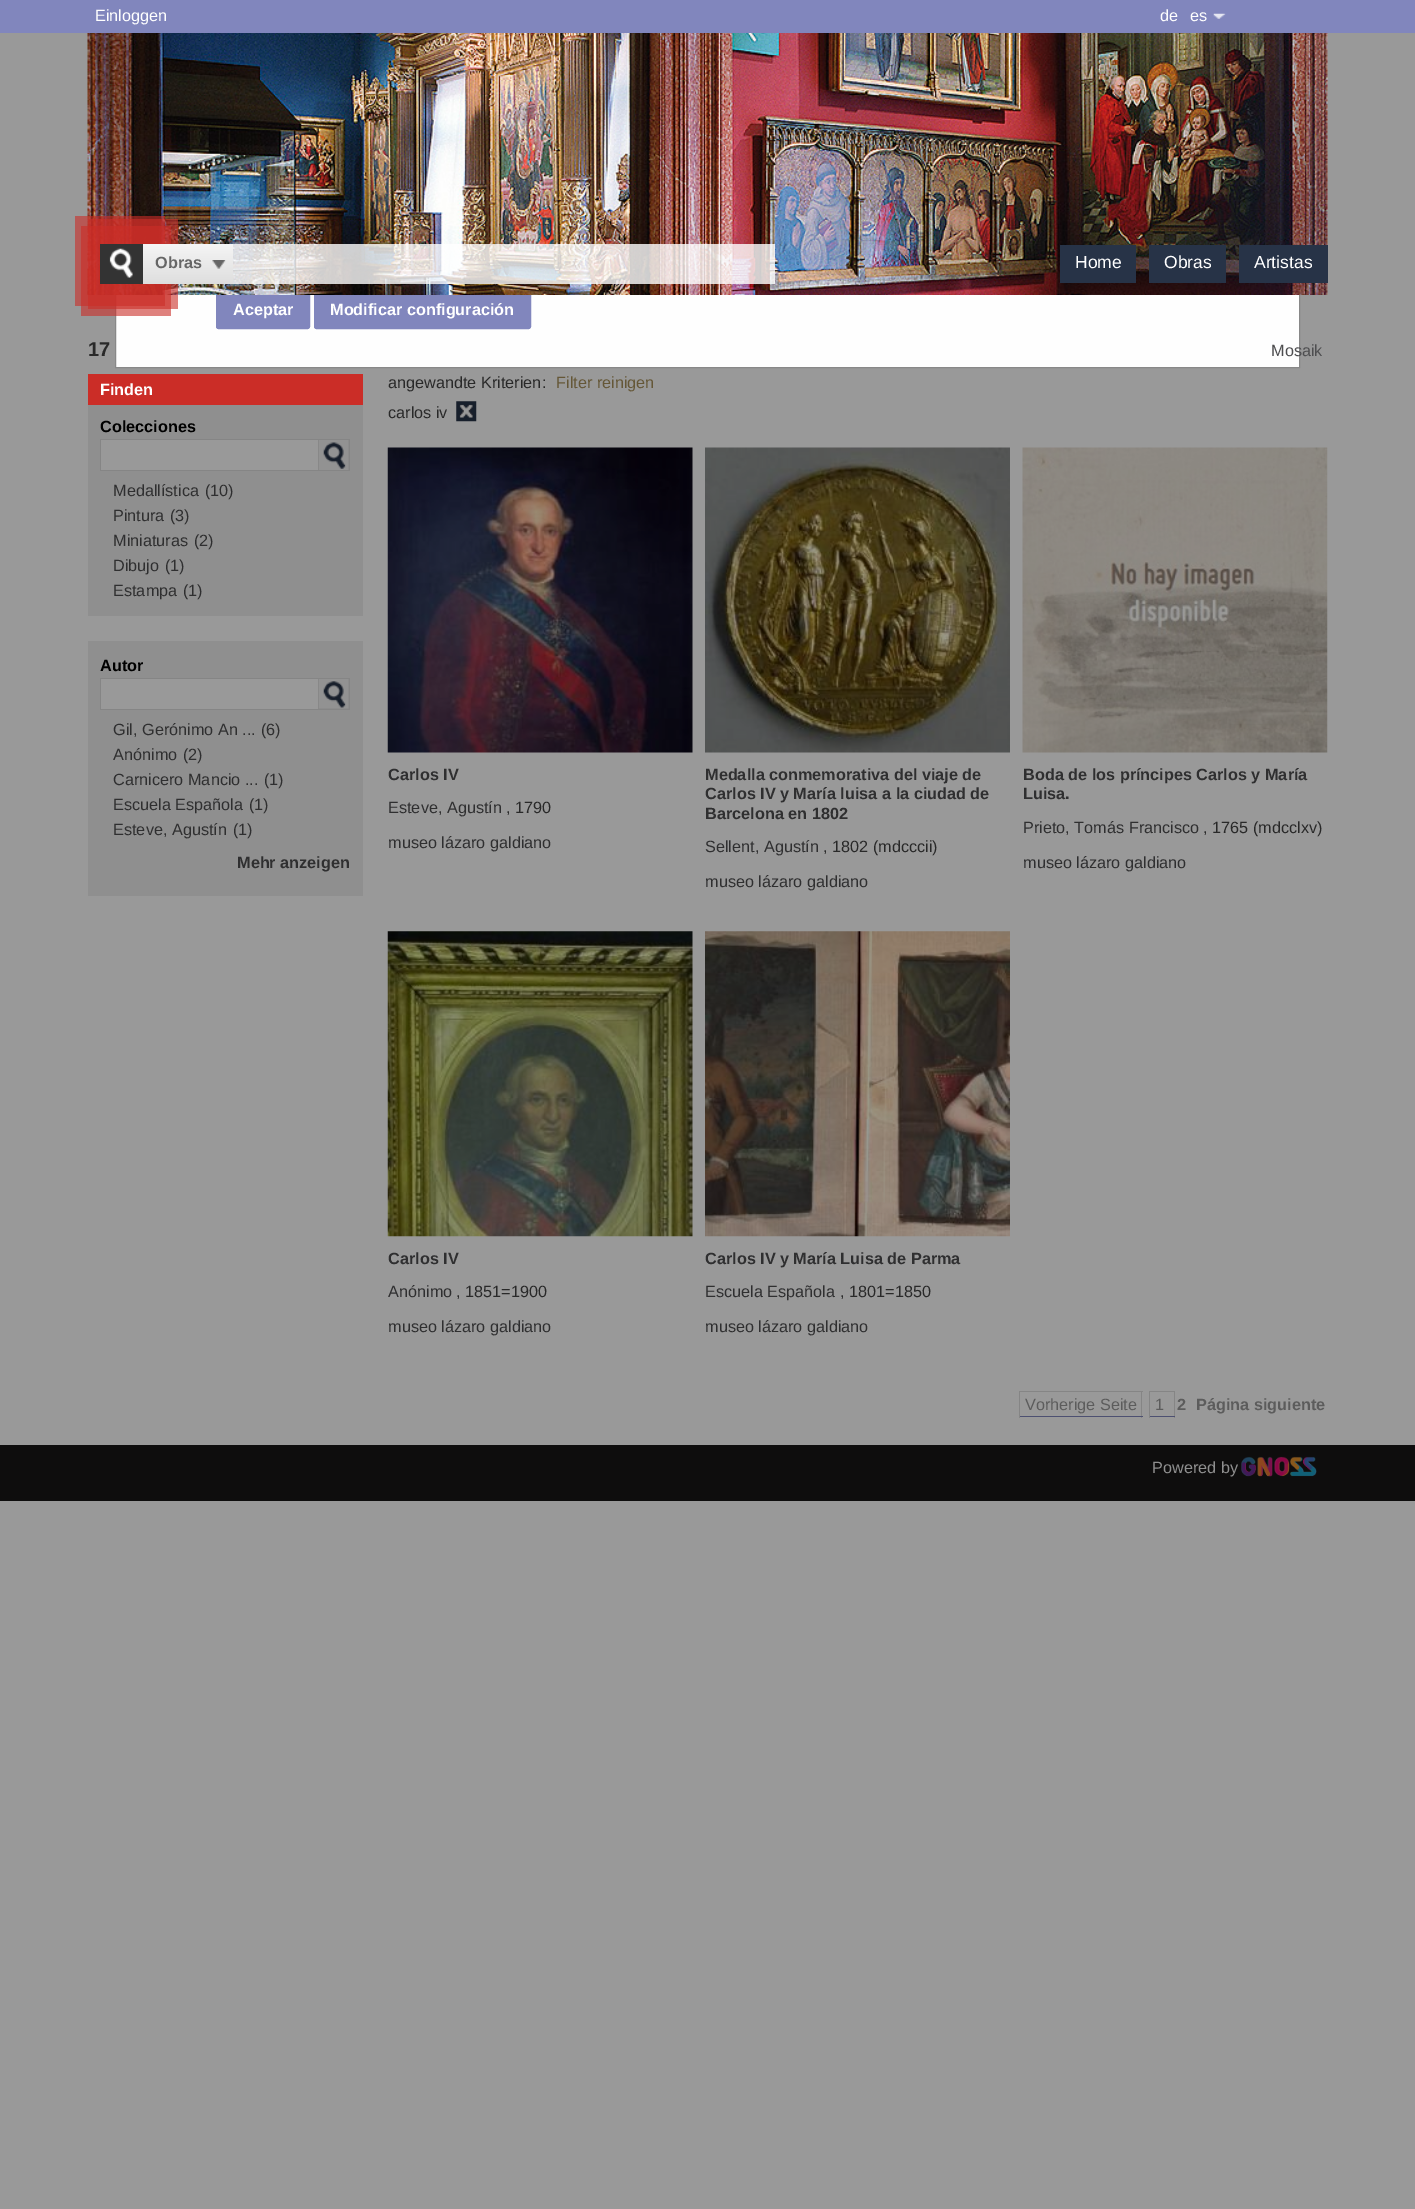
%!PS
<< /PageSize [1415 2209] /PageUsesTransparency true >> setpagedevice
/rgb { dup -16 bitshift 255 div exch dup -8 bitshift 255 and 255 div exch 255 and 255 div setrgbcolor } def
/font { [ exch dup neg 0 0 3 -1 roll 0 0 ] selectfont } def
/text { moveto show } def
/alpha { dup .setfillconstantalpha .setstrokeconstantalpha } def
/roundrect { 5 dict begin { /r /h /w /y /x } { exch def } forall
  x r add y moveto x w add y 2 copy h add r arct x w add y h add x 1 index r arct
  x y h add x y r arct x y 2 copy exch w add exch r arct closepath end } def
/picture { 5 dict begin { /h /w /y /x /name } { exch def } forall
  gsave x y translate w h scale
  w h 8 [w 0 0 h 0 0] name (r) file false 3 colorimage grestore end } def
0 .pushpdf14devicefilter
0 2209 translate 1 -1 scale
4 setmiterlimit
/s1 { /LiberationSans-Regular 16.25 font 16#FFFFFF rgb } def
/s2 { /LiberationSans-Bold 16.25 font 16#666666 rgb } def
/s3 { /LiberationSans-Regular 17.5 font 16#FFFFFF rgb } def
/s4 { /LiberationSans-Bold 16.25 font 16#FFFFFF rgb } def
/s5 { /LiberationSans-Bold 20 font 16#292929 rgb } def
/s6 { /LiberationSans-Regular 16.25 font 16#4E4E50 rgb } def
/s7 { /LiberationSans-Bold 16.25 font 16#000000 rgb } def
/s8 { /LiberationSans-Regular 16.25 font 16#2F2F30 rgb } def
/s9 { /LiberationSans-Bold 16.25 font 16#2F2F30 rgb } def
/s10 { /LiberationSans-Regular 16.25 font 16#292929 rgb } def
/s11 { /LiberationSans-Regular 16.25 font 16#655737 rgb } def
/s12 { /LiberationSans-Regular 16.25 font 16#5C5C5C rgb } def
/s13 { /LiberationSans-Bold 16.25 font 16#5C5C5C rgb } def
/s14 { /LiberationSans-Regular 16.25 font 16#8F8F8F rgb } def
16#999999 rgb
0 0 1415 2209 rectfill
16#8186BD rgb
0 0 1415 33 rectfill
s1
(Einloggen) 95 21 text
(de) 1160 21 text
(es) 1190 21 text
(pic1.raw) 1213 13 13 6 picture
16#FEFEFE rgb
116 295 1183 72 rectfill
16#888888 rgb
115.5 125.5 1184 242 rectstroke
16#8186BD rgb
216.5 291.5 93 37 2 roundrect gsave fill grestore
stroke
314.5 291.5 216 37 2 roundrect gsave fill grestore
stroke
(pic2.raw) 87 33 1241 262 picture
0.6 alpha
16#CB2D27 rgb
88 219 90 90 rectfill
81 226 90 90 rectfill
75 216 90 90 rectfill
1 alpha
16#333333 rgb
100 244 43 40 rectfill
(pic3.raw) 109 248 24 30 picture
gsave 143 244 moveto 233 244 lineto 233 284 lineto 143 284 lineto closepath clip newpath
<< /ShadingType 2 /ColorSpace /DeviceRGB /Coords [188 244 188 284] /Extend [true true] /Function << /FunctionType 2 /Domain [0 1] /C0 [0.961 0.961 0.961] /C1 [0.871 0.871 0.871] /N 1 >> >> shfill grestore
s2
(Obras) 155 268 text
(pic4.raw) 212 260 14 9 picture
0.8 alpha
16#FFFFFF rgb
233 244 542 40 rectfill
1 alpha
16#273347 rgb
1060 245 76 38 rectfill
s3
(Home) 1075 268 text
16#273347 rgb
1149 245 77 38 rectfill
s3
(Obras) 1164 268 text
16#273347 rgb
1239 245 89 38 rectfill
s3
(Artistas) 1254 268 text
s4
(Aceptar) 233 315 text
(Modificar configuración) 330 315 text
s5
(17) 88 356 text
s6
(Mosaik) 1271 356 text
16#CB2D27 rgb
88 374 275 31 rectfill
s4
(Finden) 100 395 text
16#8F8F8F rgb
88 405 275 211 rectfill
s7
(Colecciones) 100 432 text
16#858585 rgb
100 439 250 32 rectfill
16#999999 rgb
101 440 217 30 rectfill
(pic5.raw) 318 440 31 30 picture
s8
(Medallística) 113 496 text
(\(10\)) 205 496 text
(Pintura) 113 521 text
(\(3\)) 170 521 text
(Miniaturas) 113 546 text
(\(2\)) 194 546 text
(Dibujo) 113 571 text
(\(1\)) 165 571 text
(Estampa) 113 596 text
(\(1\)) 183 596 text
16#8F8F8F rgb
88 641 275 255 rectfill
s7
(Autor) 100 671 text
16#858585 rgb
100 678 250 32 rectfill
16#999999 rgb
101 679 217 30 rectfill
(pic6.raw) 318 679 31 30 picture
s8
(Gil, Gerónimo An ...) 113 735 text
(\(6\)) 261 735 text
(Anónimo) 113 760 text
(\(2\)) 183 760 text
(Carnicero Mancio ...) 113 785 text
(\(1\)) 264 785 text
(Escuela Española) 113 810 text
(\(1\)) 249 810 text
(Esteve, Agustín) 113 835 text
(\(1\)) 233 835 text
s9
(Mehr anzeigen) 237 868 text
s10
(angewandte Kriterien:) 388 388 text
s11
(Filter reinigen) 556 388 text
s10
(carlos iv) 388 418 text
(pic7.raw) 456 401 21 21 picture
(pic8.raw) 387 447 306 306 picture
s9
(Carlos IV) 388 780 text
s8
(Esteve, Agustín) 388 813 text
s10
(, 1790) 506 813 text
s8
(museo lázaro galdiano) 388 848 text
(pic9.raw) 705 447 305 306 picture
s9
(Medalla conmemorativa del viaje de) 705 780 text
(Carlos IV y María luisa a la ciudad de) 705 799 text
(Barcelona en 1802) 705 819 text
s8
(Sellent, Agustín) 705 852 text
s10
(, 1802 \(mdcccii\)) 823 852 text
s8
(museo lázaro galdiano) 705 887 text
(pic10.raw) 1022 447 306 306 picture
s9
(Boda de los príncipes Carlos y María) 1023 780 text
(Luisa.) 1023 799 text
s8
(Prieto, Tomás Francisco) 1023 833 text
s10
(, 1765 \(mdcclxv\)) 1203 833 text
s8
(museo lázaro galdiano) 1023 868 text
(pic11.raw) 387 931 306 306 picture
s9
(Carlos IV) 388 1264 text
s8
(Anónimo) 388 1297 text
s10
(, 1851=1900) 456 1297 text
s8
(museo lázaro galdiano) 388 1332 text
(pic12.raw) 705 931 305 306 picture
s9
(Carlos IV y María Luisa de Parma) 705 1264 text
s8
(Escuela Española) 705 1297 text
s10
(, 1801=1850) 840 1297 text
s8
(museo lázaro galdiano) 705 1332 text
s12
(Vorherige Seite) 1025 1410 text
16#858585 rgb
1019 1391 124 1 rectfill
1141 1391 1 27 rectfill
16#4D5071 rgb
1019 1416 124 1 rectfill
16#858585 rgb
1019 1391 1 27 rectfill
s12
(1) 1155 1410 text
16#858585 rgb
1149 1391 26 1 rectfill
1174 1391 1 27 rectfill
16#4D5071 rgb
1149 1416 26 1 rectfill
16#858585 rgb
1149 1391 1 27 rectfill
s13
(2) 1177 1410 text
(Página siguiente) 1196 1410 text
16#0E0D0D rgb
0 1445 1415 56 rectfill
s14
(Powered by) 1152 1473 text
(pic13.raw) 1241 1456 76 21 picture
.poppdf14devicefilter showpage
